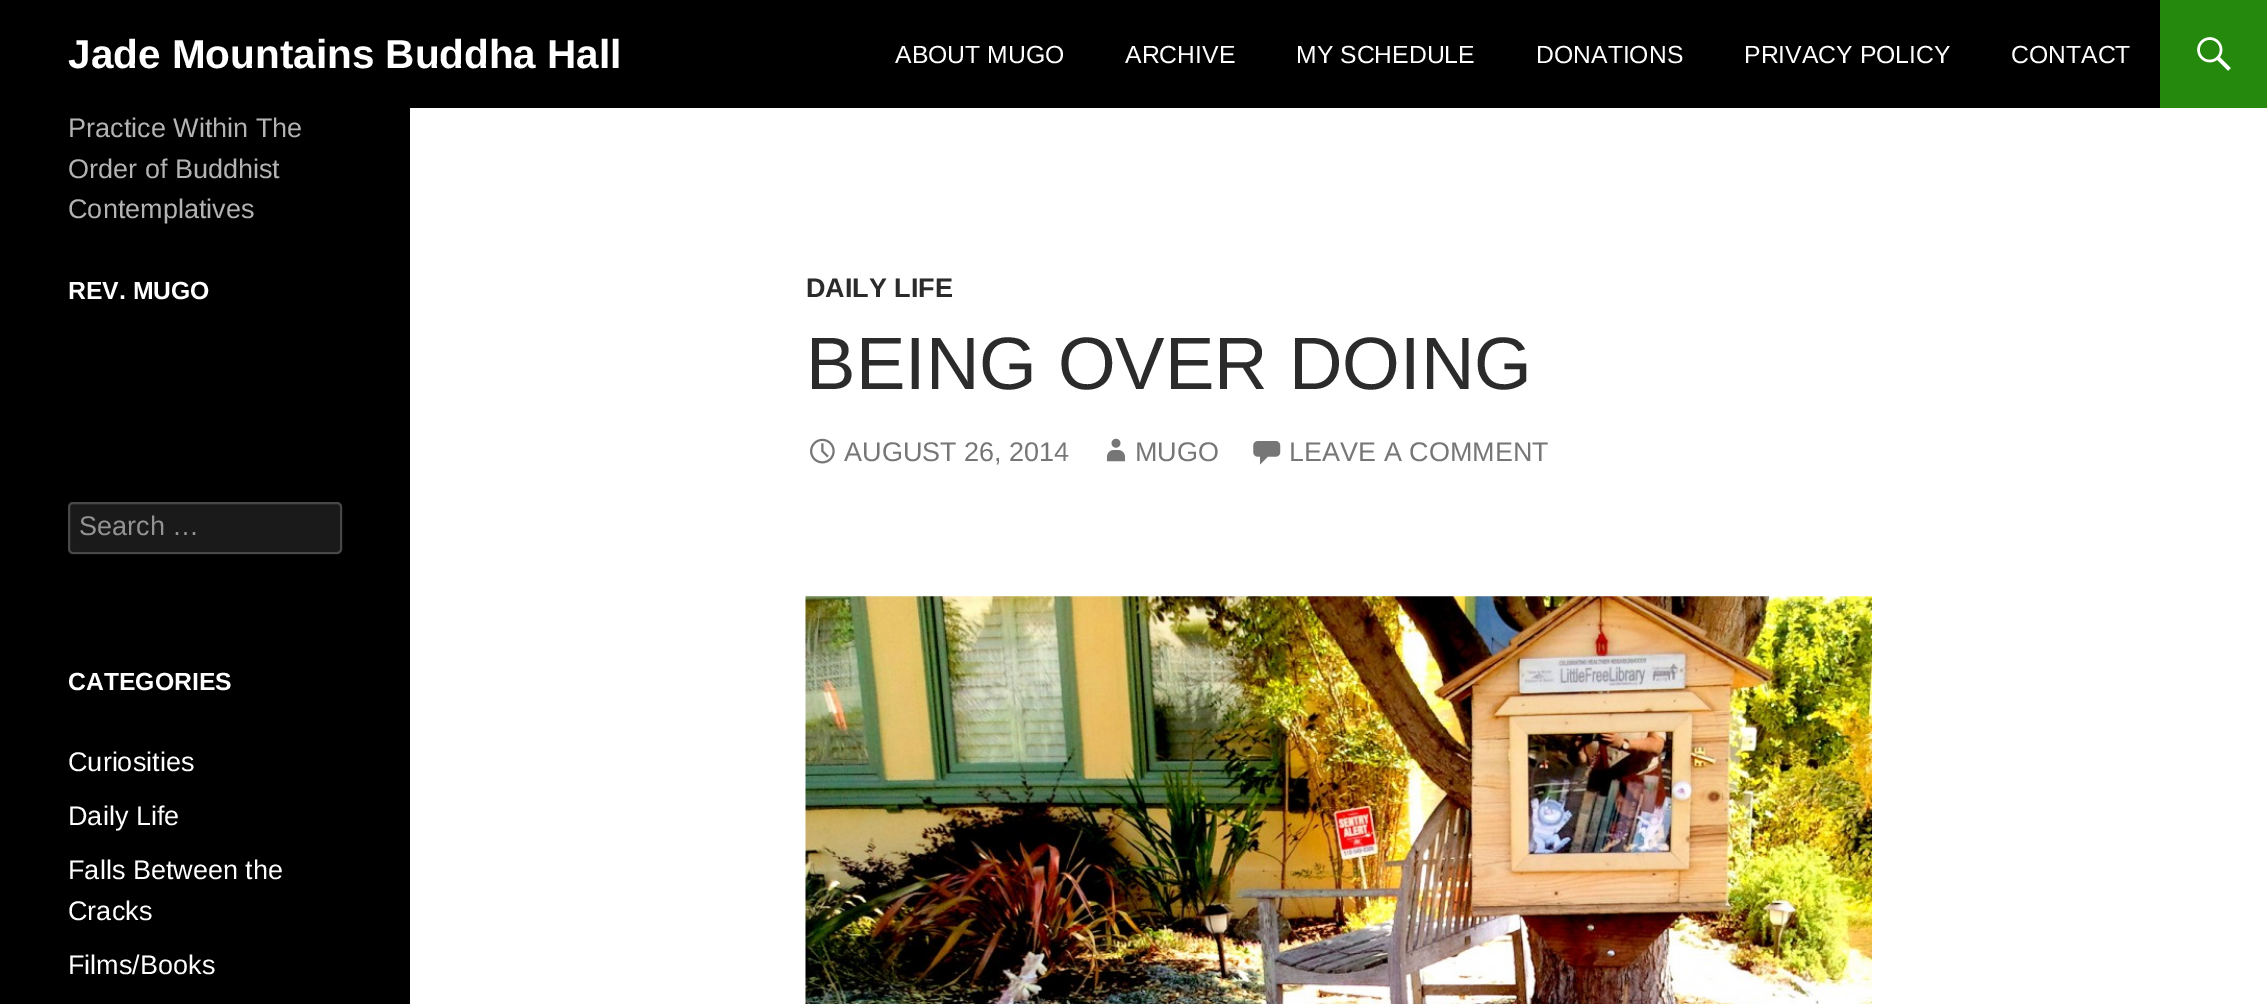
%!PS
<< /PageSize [2267 1004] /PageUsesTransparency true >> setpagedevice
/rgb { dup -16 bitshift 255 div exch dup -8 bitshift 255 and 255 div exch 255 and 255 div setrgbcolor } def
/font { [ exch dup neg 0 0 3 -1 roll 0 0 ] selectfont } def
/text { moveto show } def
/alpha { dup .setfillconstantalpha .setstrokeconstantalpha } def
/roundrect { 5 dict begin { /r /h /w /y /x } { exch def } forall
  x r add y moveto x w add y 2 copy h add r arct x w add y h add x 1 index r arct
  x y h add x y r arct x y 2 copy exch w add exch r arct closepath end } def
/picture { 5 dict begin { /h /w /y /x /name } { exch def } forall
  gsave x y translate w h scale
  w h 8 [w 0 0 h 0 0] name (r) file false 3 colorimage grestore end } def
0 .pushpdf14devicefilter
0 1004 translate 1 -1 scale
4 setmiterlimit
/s1 { /LiberationSans-Bold 40.5 font 16#FFFFFF rgb } def
/s2 { /LiberationSans-Regular 24.75 font 16#FFFFFF rgb } def
/s3 { /LiberationSans-Regular 27 font 16#B3B3B3 rgb } def
/s4 { /LiberationSans-Bold 24.75 font 16#FFFFFF rgb } def
/s5 { /LiberationSans-Regular 27 font 16#939393 rgb } def
/s6 { /LiberationSans-Regular 27 font 16#FFFFFF rgb } def
/s7 { /LiberationSans-Bold 27 font 16#2B2B2B rgb } def
/s8 { /LiberationSans-Regular 74.25 font 16#2B2B2B rgb } def
/s9 { /LiberationSans-Regular 27 font 16#767676 rgb } def
16#FFFFFF rgb
0 0 2267 1004 rectfill
16#000000 rgb
0 0 2160 108 rectfill
s1
(Jade Mountains Buddha Hall) 68 68 text
s2
(ABOUT MUGO) 895 63 text
(ARCHIVE) 1125 63 text
(MY SCHEDULE) 1296 63 text
(DONATIONS) 1536 63 text
(PRIVACY POLICY) 1744 63 text
(CONTACT) 2011 63 text
16#24890D rgb
2160 0 107 108 rectfill
(pic1.raw) 2197 37 34 34 picture
16#000000 rgb
0 108 410 896 rectfill
s3
(Practice Within The) 68 137 text
(Order of Buddhist) 68 178 text
(Contemplatives) 68 218 text
s4
(REV. MUGO) 68 299 text
16#1A1A1A rgb
68 502 274 52 5 roundrect fill
0.2 alpha
16#FFFFFF rgb
2 setlinewidth
69 503 272 50 4 roundrect stroke
1 alpha
s5
(Search …) 79 535 text
s4
(CATEGORIES) 68 690 text
s6
(Curiosities) 68 771 text
(Daily Life) 68 825 text
(Falls Between the) 68 879 text
(Cracks) 68 920 text
(Films/Books) 68 974 text
s7
(DAILY LIFE) 806 297 text
s8
(BEING OVER DOING) 806 389 text
(pic2.raw) 810 438 25 26 picture
s9
(AUGUST 26, 2014) 844 461 text
(pic3.raw) 1107 438 18 24 picture
(MUGO) 1135 461 text
(pic4.raw) 1253 441 28 24 picture
(LEAVE A COMMENT) 1289 461 text
(pic5.raw) 805 596 1067 408 picture
.poppdf14devicefilter showpage
